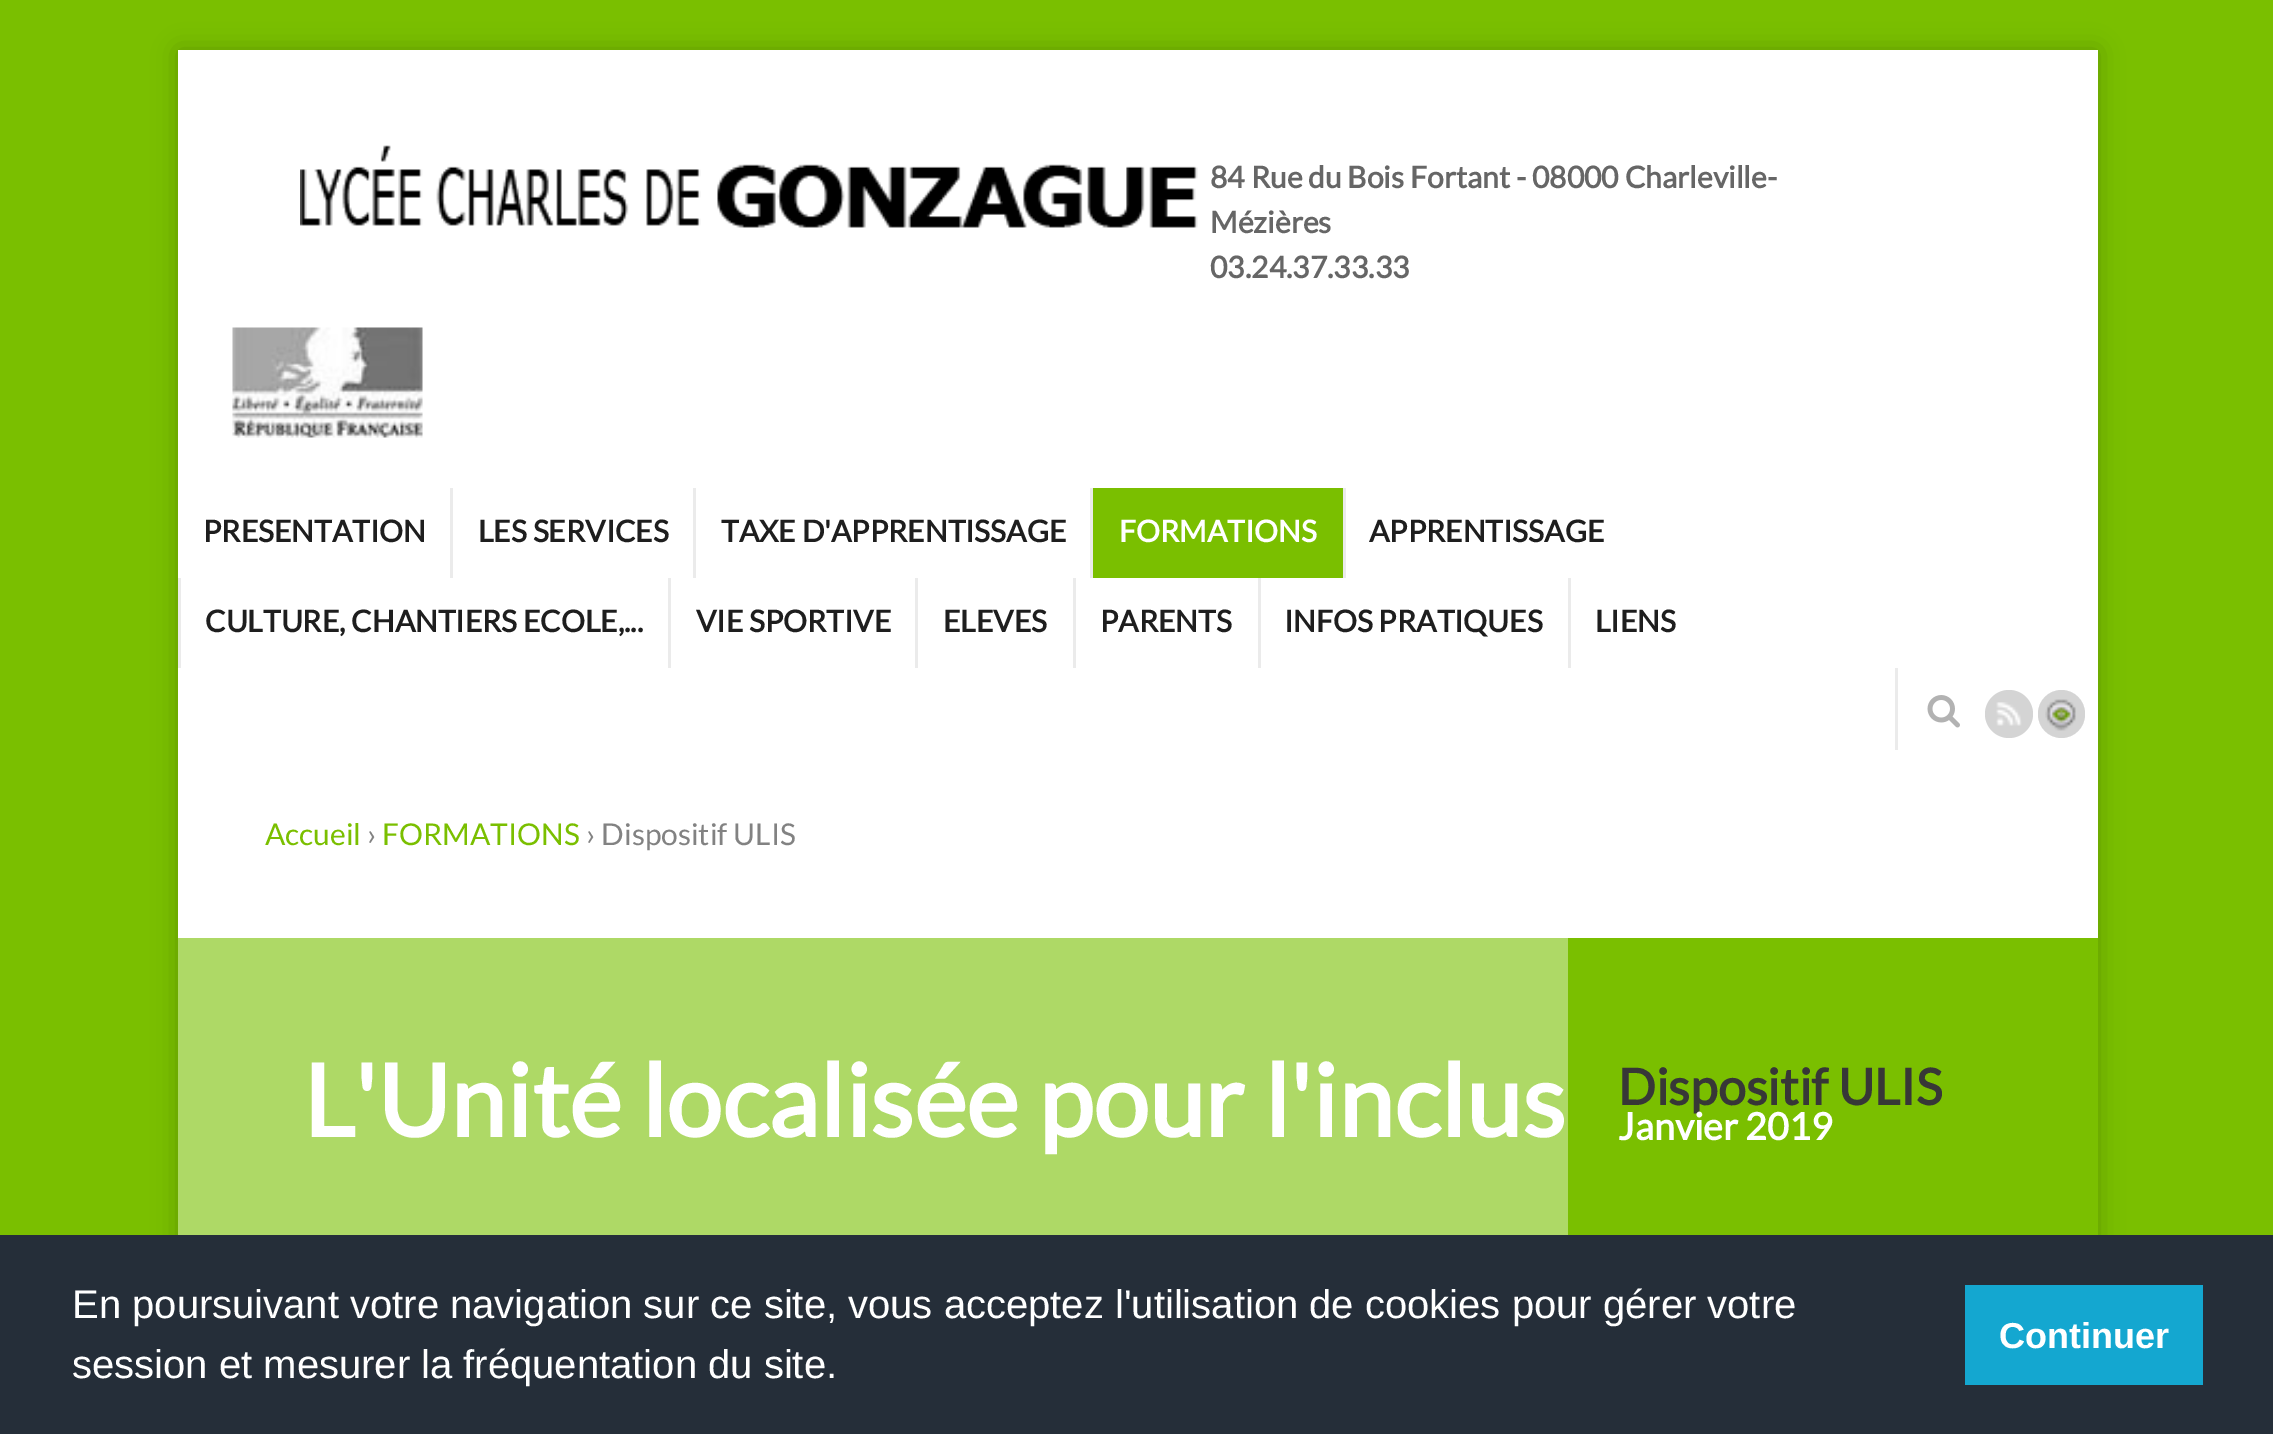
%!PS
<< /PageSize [2273 1434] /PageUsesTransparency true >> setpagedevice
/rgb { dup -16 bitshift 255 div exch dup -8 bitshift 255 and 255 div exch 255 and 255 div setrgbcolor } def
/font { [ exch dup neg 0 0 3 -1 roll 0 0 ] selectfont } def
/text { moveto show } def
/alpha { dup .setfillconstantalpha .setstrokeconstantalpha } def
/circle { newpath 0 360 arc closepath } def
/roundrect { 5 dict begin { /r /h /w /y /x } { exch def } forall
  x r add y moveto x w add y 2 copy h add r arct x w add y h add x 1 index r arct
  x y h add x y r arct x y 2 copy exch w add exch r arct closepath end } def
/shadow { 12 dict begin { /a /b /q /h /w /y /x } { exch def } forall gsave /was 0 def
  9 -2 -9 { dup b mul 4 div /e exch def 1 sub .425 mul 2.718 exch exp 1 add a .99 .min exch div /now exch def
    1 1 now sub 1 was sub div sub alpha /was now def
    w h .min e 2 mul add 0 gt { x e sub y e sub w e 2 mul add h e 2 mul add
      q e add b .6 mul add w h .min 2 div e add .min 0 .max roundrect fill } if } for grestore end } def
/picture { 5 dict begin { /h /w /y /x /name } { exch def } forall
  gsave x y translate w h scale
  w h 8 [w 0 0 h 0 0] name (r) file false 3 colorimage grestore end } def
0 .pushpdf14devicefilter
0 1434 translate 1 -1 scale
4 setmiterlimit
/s1 { /Lato-Bold 30 font 16#666666 rgb } def
/s2 { /Lato-Bold 30 font 16#1E1E1E rgb } def
/s3 { /Lato-Bold 30 font 16#FFFFFF rgb } def
/s4 { /Lato-Regular 30 font 16#7ABF00 rgb } def
/s5 { /Lato-Regular 30 font 16#828282 rgb } def
/s6 { /Lato-Bold 100 font 16#FFFFFF rgb } def
/s7 { /Lato-Bold 50 font 16#373737 rgb } def
/s8 { /Lato-Bold 37.5 font 16#FFFFFF rgb } def
/s9 { /LiberationSans-Regular 40 font 16#FFFFFF rgb } def
/s10 { /LiberationSans-Bold 36 font 16#FFFFFF rgb } def
16#7ABF00 rgb
0 0 2273 1434 rectfill
16#000000 rgb
178 50 1920 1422 0 12.5 0.2 shadow
16#FFFFFF rgb
178 50 1920 888 rectfill
(pic1.raw) 300 145 898 83 picture
s1
(84 Rue du Bois Fortant - 08000 Charleville-) 1210 188 text
(Mézières) 1210 233 text
(03.24.37.33.33) 1210 278 text
(pic2.raw) 232 327 191 111 picture
s2
(PRESENTATION) 203 542 text
16#EBEBEB rgb
450 488 3 90 rectfill
s2
(LES SERVICES) 478 542 text
16#EBEBEB rgb
693 488 3 90 rectfill
s2
(TAXE D'APPRENTISSAGE) 721 542 text
16#7ABF00 rgb
1093 488 250 90 rectfill
16#EBEBEB rgb
1090 488 3 90 rectfill
s3
(FORMATIONS) 1119 542 text
16#EBEBEB rgb
1343 488 3 90 rectfill
s2
(APPRENTISSAGE) 1369 542 text
16#EBEBEB rgb
178 578 3 90 rectfill
s2
(CULTURE, CHANTIERS ECOLE,...) 205 632 text
16#EBEBEB rgb
668 578 3 90 rectfill
s2
(VIE SPORTIVE) 696 632 text
16#EBEBEB rgb
915 578 3 90 rectfill
s2
(ELEVES) 943 632 text
16#EBEBEB rgb
1073 578 3 90 rectfill
s2
(PARENTS) 1100 632 text
16#EBEBEB rgb
1258 578 3 90 rectfill
s2
(INFOS PRATIQUES) 1284 632 text
16#EBEBEB rgb
1568 578 3 90 rectfill
s2
(LIENS) 1595 632 text
16#EBEBEB rgb
1895 668 3 82 rectfill
(pic3.raw) 1927 695 33 33 picture
16#D4D4D4 rgb
2009 714 24 circle fill
(pic4.raw) 1996 702 26 24 picture
2038 690 47 48 23.5 roundrect fill
(pic5.raw) 2045 699 31 32 picture
s4
(Accueil) 265 845 text
s5
(›) 367 845 text
s4
(FORMATIONS) 382 845 text
s5
(› Dispositif ULIS) 586 845 text
16#AED966 rgb
178 938 1390 297 rectfill
s6
(L'Unité localisée pour l'inclus) 303 1137 text
16#7ABF00 rgb
1568 938 530 297 rectfill
s7
(Dispositif ULIS) 1618 1105 text
s8
(Janvier 2019) 1618 1140 text
16#252E39 rgb
0 1235 2273 199 rectfill
s9
(En poursuivant votre navigation sur ce site, vous acceptez l'utilisation de cookies pour gérer votre) 72 1318 text
(session et mesurer la fréquentation du site.) 72 1378 text
16#14A7D0 rgb
1965 1285 238 100 rectfill
s10
(Continuer) 1999 1348 text
.poppdf14devicefilter showpage
